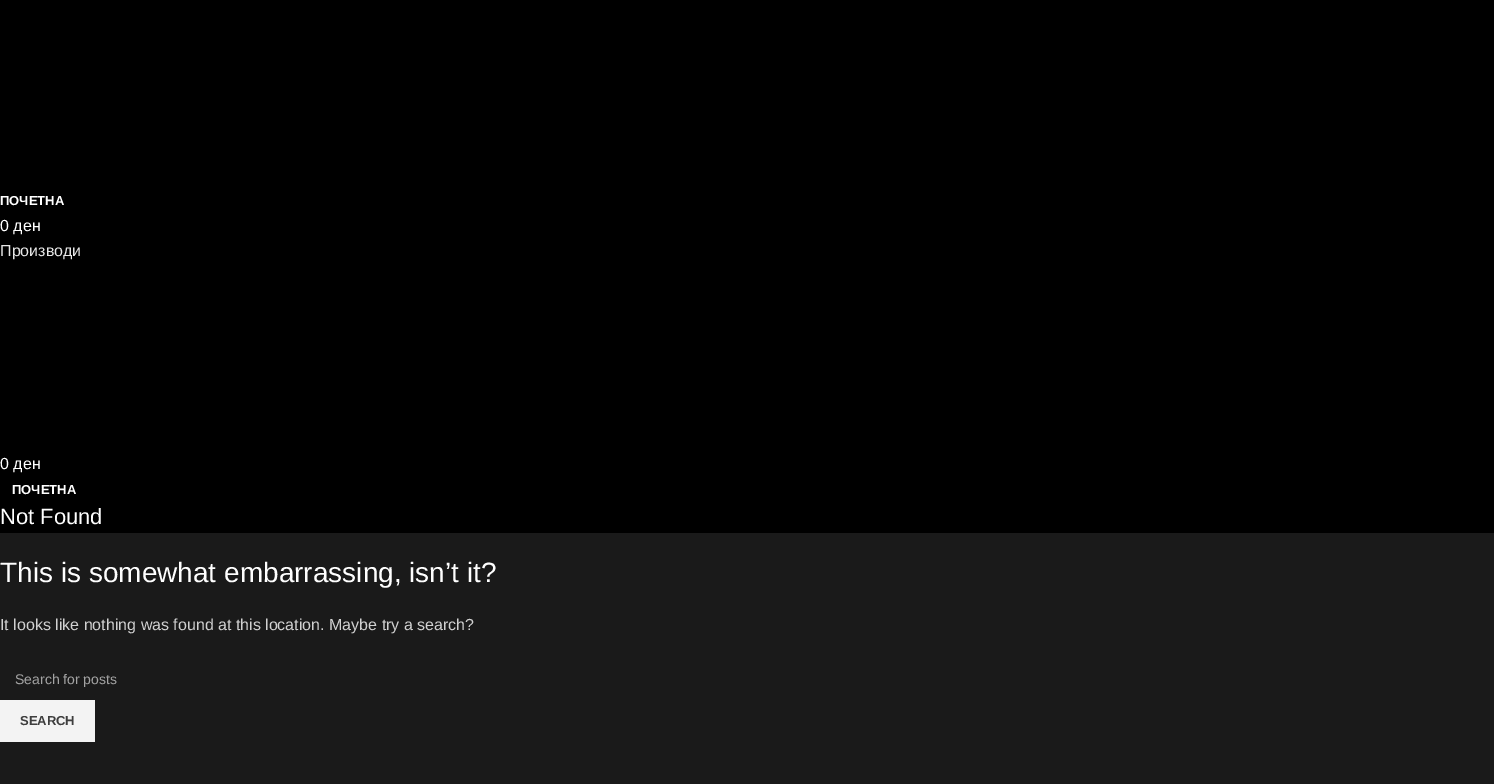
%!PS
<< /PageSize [1494 784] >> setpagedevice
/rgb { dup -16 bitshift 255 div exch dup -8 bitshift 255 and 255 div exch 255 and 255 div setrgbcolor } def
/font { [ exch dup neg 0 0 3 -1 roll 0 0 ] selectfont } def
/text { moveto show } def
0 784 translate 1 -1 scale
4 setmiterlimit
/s1 { /LiberationSans-Bold 13 font 16#FFFFFF rgb } def
/s2 { /LiberationSans-Regular 16 font 16#FFFFFF rgb } def
/s3 { /LiberationSans-Regular 16 font 16#E6E6E6 rgb } def
/s4 { /LiberationSans-Regular 22 font 16#FFFFFF rgb } def
/s5 { /LiberationSans-Regular 28 font 16#FFFFFF rgb } def
/s6 { /LiberationSans-Regular 16 font 16#D1D1D1 rgb } def
/s7 { /LiberationSans-Regular 14 font 16#A3A3A3 rgb } def
/s8 { /LiberationSans-Bold 13 font 16#3E3E3E rgb } def
16#1A1A1A rgb
0 0 1494 784 rectfill
16#000000 rgb
0 0 1494 533 rectfill
s1
(ПОЧЕТНА) 0 205 text
s2
(0 ден) 0 231 text
s3
(Производи) 0 256 text
s2
(0 ден) 0 469 text
s1
(ПОЧЕТНА) 12 494 text
s4
(Not Found) 0 524 text
s5
(This is somewhat embarrassing, isn’t it?) 0 582 text
s6
(It looks like nothing was found at this location. Maybe try a search?) 0 630 text
s7
(Search for posts) 15 684 text
16#F3F3F3 rgb
0 700 95 42 rectfill
s8
(SEARCH) 20 725 text
showpage
